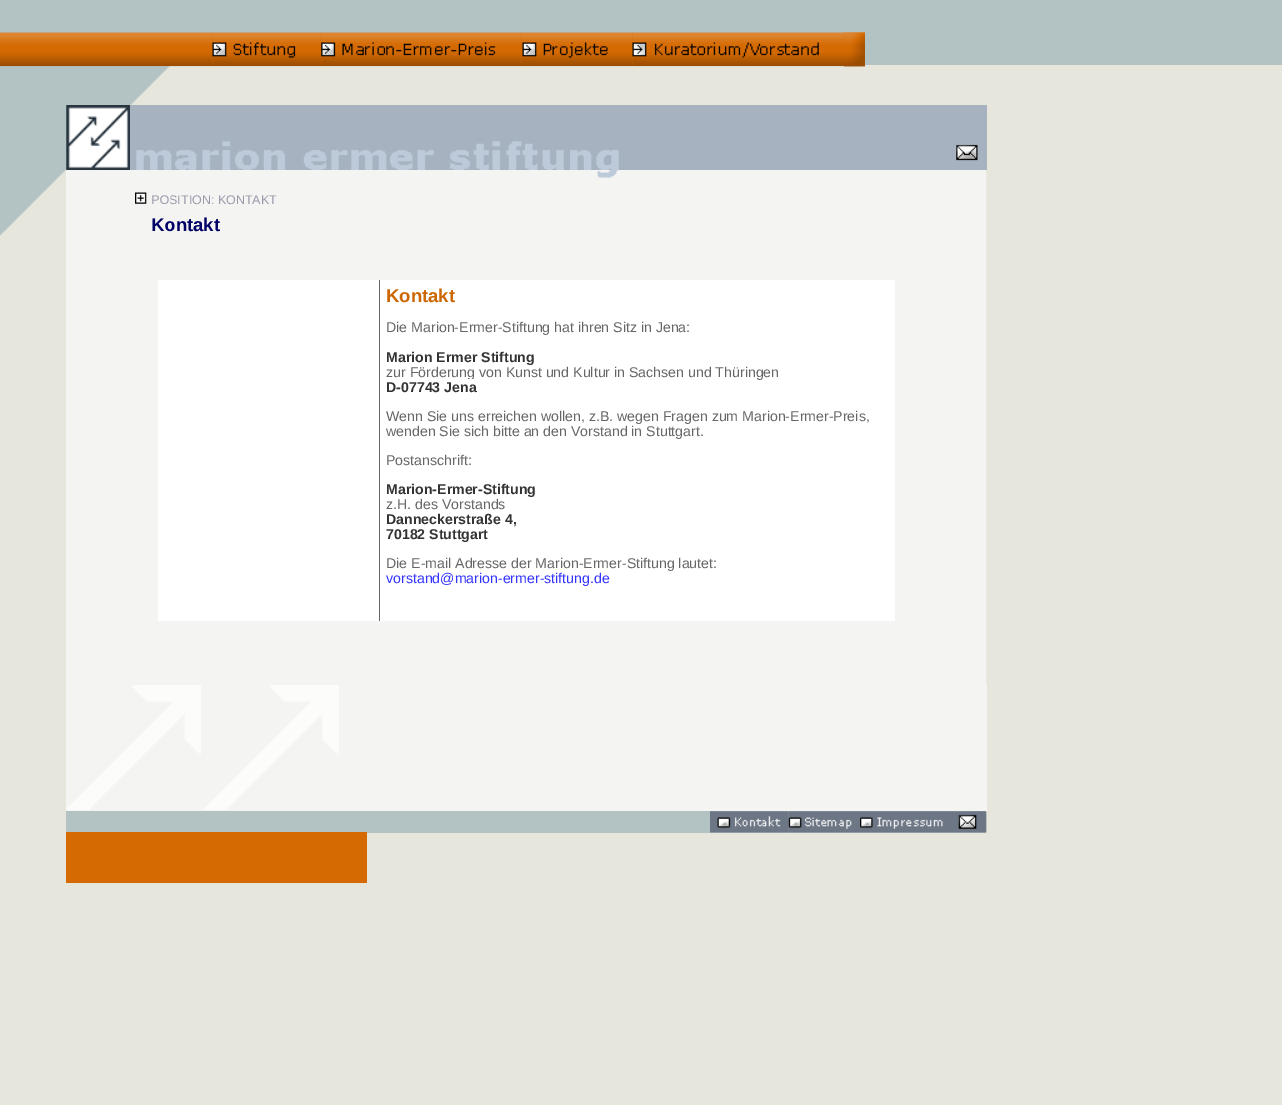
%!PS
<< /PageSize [1282 1105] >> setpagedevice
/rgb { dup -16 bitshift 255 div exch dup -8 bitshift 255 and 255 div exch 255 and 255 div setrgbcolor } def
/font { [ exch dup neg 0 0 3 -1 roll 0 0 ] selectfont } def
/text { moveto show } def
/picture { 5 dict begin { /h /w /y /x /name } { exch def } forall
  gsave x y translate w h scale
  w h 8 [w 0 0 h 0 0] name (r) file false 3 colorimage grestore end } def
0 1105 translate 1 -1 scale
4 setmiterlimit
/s1 { /LiberationSans-Regular 12.5 font 16#9999AA rgb } def
/s2 { /LiberationSans-Bold 18.5 font 16#000066 rgb } def
/s3 { /LiberationSans-Bold 18.5 font 16#CC6600 rgb } def
/s4 { /LiberationSans-Regular 14.15 font 16#666666 rgb } def
/s5 { /LiberationSans-Bold 14.15 font 16#333333 rgb } def
/s6 { /LiberationSans-Regular 14.15 font 16#3333FF rgb } def
16#E6E6DC rgb
0 0 1282 1105 rectfill
16#A6B2BF rgb
66 105 921 65 rectfill
(pic14.raw) 136 141 483 29 picture
16#F4F4F3 rgb
66 170 920 23 rectfill
66 193 920 22 rectfill
(pic17.raw) 135 192 12 12 picture
s1
(POSITION: KONTAKT) 151 204 text
16#F4F4F3 rgb
66 215 920 59 rectfill
s2
(Kontakt) 151 231 text
(pic12.raw) 0 66 171 170 picture
16#B3C3C3 rgb
0 0 66 33 rectfill
66 0 1216 65 rectfill
(pic1.raw) 0 32 213 35 picture
(pic2.raw) 212 32 110 35 picture
(pic3.raw) 212 42 84 16 picture
(pic4.raw) 321 32 201 35 picture
(pic5.raw) 321 42 175 15 picture
(pic6.raw) 521 32 112 35 picture
(pic7.raw) 522 42 86 16 picture
(pic8.raw) 632 32 212 35 picture
(pic9.raw) 632 42 187 16 picture
(pic10.raw) 843 32 22 35 picture
(pic11.raw) 843 32 22 35 picture
(pic13.raw) 66 105 64 65 picture
(pic15.raw) 956 144 22 17 picture
(pic16.raw) 597 170 21 8 picture
16#E9E9E2 rgb
986 170 1 22 rectfill
986 193 1 22 rectfill
(pic18.raw) 986 215 1 59 picture
16#F4F4F3 rgb
66 274 920 389 rectfill
16#E9E9E2 rgb
986 274 1 388 rectfill
16#FFFFFF rgb
158 280 221 341 rectfill
380 280 515 341 rectfill
16#666666 rgb
379 280 1 341 rectfill
s3
(Kontakt) 386 302 text
s4
(Die Marion-Ermer-Stiftung hat ihren Sitz in Jena:) 386 332 text
s5
(Marion Ermer Stiftung) 386 362 text
s4
(zur Förderung von Kunst und Kultur in Sachsen und Thüringen) 386 377 text
s5
(D-07743 Jena) 386 392 text
16#FFFFFF rgb
468 379 6 1 rectfill
s4
(Wenn Sie uns erreichen wollen, z.B. wegen Fragen zum Marion-Ermer-Preis,) 386 421 text
(wenden Sie sich bitte an den Vorstand in Stuttgart.) 386 436 text
(Postanschrift:) 386 465 text
s5
(Marion-Ermer-Stiftung) 386 494 text
s4
(z.H. des Vorstands) 386 509 text
s5
(Danneckerstraße 4,) 386 524 text
(70182 Stuttgart) 386 539 text
s4
(Die E-mail Adresse der Marion-Ermer-Stiftung lautet:) 386 568 text
s6
(vorstand@marion-ermer-stiftung.de) 386 583 text
16#F4F4F3 rgb
66 663 920 22 rectfill
16#E9E9E2 rgb
986 663 1 22 rectfill
16#F4F4F3 rgb
66 685 921 127 rectfill
(pic19.raw) 66 685 135 125 picture
(pic20.raw) 204 685 135 125 picture
16#B3C3C3 rgb
66 811 920 22 rectfill
(pic21.raw) 986 811 1 22 picture
(pic22.raw) 710 811 79 22 picture
(pic23.raw) 788 811 72 22 picture
(pic24.raw) 860 811 90 22 picture
(pic25.raw) 950 811 37 22 picture
16#D56A02 rgb
66 832 301 51 rectfill
showpage
